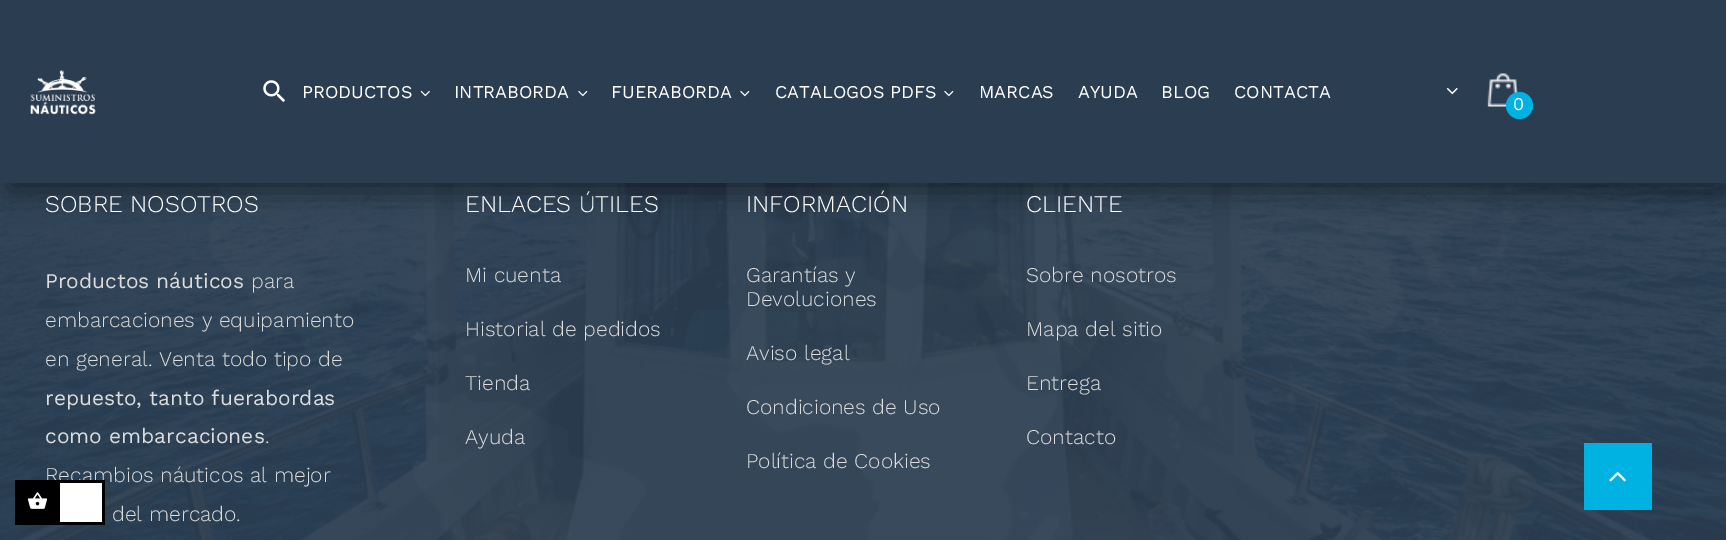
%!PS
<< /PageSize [1726 540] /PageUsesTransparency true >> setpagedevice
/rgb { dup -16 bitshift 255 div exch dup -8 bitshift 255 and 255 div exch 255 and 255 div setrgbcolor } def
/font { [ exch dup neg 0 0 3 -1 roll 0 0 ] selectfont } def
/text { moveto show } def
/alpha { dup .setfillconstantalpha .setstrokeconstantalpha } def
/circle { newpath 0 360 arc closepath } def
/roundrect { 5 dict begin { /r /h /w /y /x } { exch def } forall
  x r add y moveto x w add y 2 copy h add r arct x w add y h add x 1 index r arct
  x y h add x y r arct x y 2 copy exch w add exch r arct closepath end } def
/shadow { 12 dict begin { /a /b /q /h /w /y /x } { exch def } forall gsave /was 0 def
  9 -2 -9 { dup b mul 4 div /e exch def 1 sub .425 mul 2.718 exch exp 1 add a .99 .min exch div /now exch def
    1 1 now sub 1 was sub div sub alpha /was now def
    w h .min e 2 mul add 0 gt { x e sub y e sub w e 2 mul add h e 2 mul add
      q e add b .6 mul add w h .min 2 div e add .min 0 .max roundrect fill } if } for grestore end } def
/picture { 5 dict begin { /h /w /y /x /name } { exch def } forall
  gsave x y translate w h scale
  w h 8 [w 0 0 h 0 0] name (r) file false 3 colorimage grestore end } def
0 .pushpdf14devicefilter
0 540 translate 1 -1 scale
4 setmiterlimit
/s1 { /WorkSans-Regular 18 font 16#FFFFFF rgb } def
/s2 { /WorkSans-Light 24 font 16#FFFFFF rgb } def
/s3 { /WorkSans-Regular 21 font 16#DDDDDD rgb } def
/s4 { /WorkSans-Light 21 font 16#DDDDDD rgb } def
16#2B3D51 rgb
0 0 1726 540 rectfill
(pic7.raw) 0 183 1726 357 picture
16#000000 rgb
23 8 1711 168 0 15 0.35 shadow
8 23 1711 168 0 15 0.35 shadow
16#2B3D51 rgb
0 0 1726 183 rectfill
(pic1.raw) 30 70 66 45 picture
(pic2.raw) 263 80 22 22 picture
s1
(PRODUCTOS) 302 98 text
(pic3.raw) 420 90 10 7 picture
(INTRABORDA) 454 98 text
(pic4.raw) 578 90 10 7 picture
(FUERABORDA) 611 98 text
(pic4.raw) 740 90 10 7 picture
(CATALOGOS PDFS) 775 98 text
(pic4.raw) 944 90 10 7 picture
(MARCAS) 979 98 text
(AYUDA) 1078 98 text
(BLOG) 1161 98 text
(CONTACTA) 1234 98 text
(pic5.raw) 1446 87 12 8 picture
(pic6.raw) 1487 73 31 34 picture
16#00B2E2 rgb
1519.5 105.5 13.5 circle fill
s1
(0) 1513 110 text
s2
(SOBRE NOSOTROS) 45 212 text
s3
(Productos náuticos) 45 288 text
s4
(para) 251 288 text
(embarcaciones y equipamiento) 45 327 text
(en general. Venta todo tipo de) 45 366 text
s3
(repuesto, tanto fuerabordas) 45 405 text
(como embarcaciones) 45 443 text
s4
(.) 265 443 text
(Recambios náuticos al mejor) 45 482 text
(del mercado.) 112 521 text
s2
(ENLACES ÚTILES) 465 212 text
s4
(Mi cuenta) 465 282 text
(Historial de pedidos) 465 336 text
(Tienda) 465 390 text
(Ayuda) 465 444 text
s2
(INFORMACIÓN) 746 212 text
s4
(Garantías y) 746 282 text
(Devoluciones) 746 306 text
(Aviso legal) 746 360 text
(Condiciones de Uso) 746 414 text
(Política de Cookies) 746 468 text
s2
(CLIENTE) 1026 212 text
s4
(Sobre nosotros) 1026 282 text
(Mapa del sitio) 1026 336 text
(Entrega) 1026 390 text
(Contacto) 1026 444 text
16#00B2E2 rgb
1584 443 68 67 rectfill
(pic8.raw) 1609 471 17 11 picture
16#000000 rgb
15 480 90 45 rectfill
(pic9.raw) 27 492 21 17 picture
16#FFFFFF rgb
60 483 42 39 rectfill
.poppdf14devicefilter showpage
